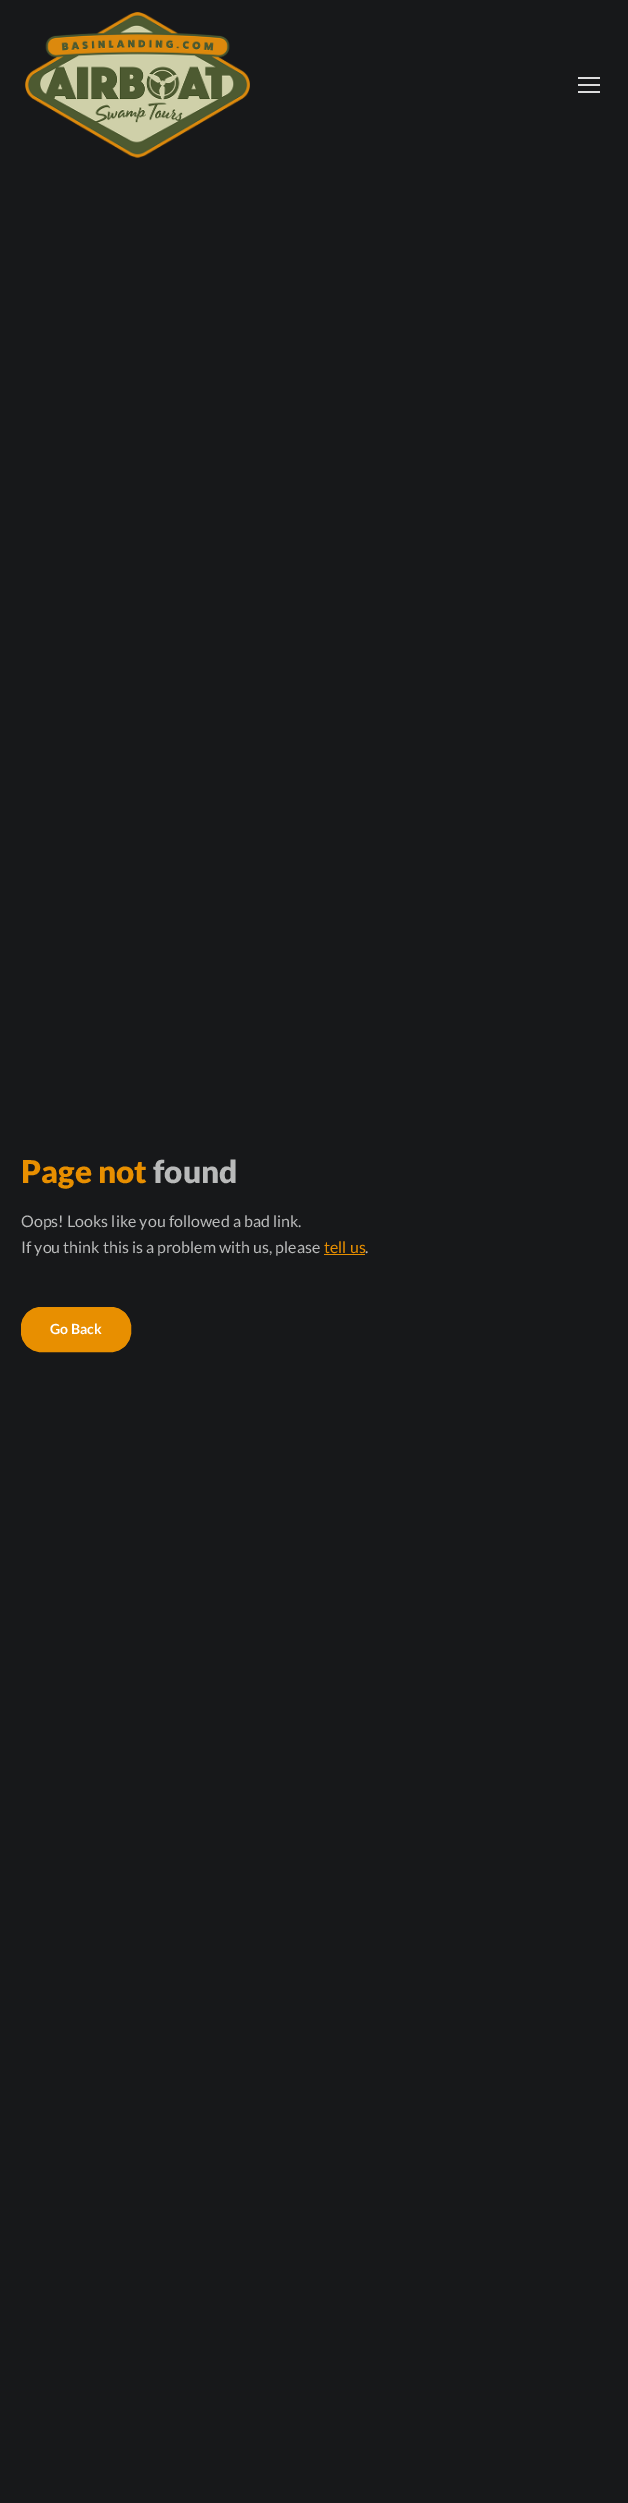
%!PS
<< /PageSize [628 2503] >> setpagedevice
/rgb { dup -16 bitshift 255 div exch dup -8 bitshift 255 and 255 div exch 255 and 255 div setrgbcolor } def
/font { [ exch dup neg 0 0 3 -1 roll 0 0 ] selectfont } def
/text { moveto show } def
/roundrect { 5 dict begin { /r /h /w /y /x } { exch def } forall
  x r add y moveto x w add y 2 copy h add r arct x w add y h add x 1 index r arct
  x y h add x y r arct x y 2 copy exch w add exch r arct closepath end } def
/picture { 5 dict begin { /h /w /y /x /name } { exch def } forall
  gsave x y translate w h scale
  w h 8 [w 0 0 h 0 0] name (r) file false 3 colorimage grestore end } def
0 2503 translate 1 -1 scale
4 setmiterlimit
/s1 { /Lato-Black 31.5 font 16#E88F00 rgb } def
/s2 { /Lato-Black 31.5 font 16#B9BABA rgb } def
/s3 { /Lato-Regular 16 font 16#B9BABA rgb } def
/s4 { /Lato-Regular 16 font 16#E88F00 rgb } def
/s5 { /Lato-Bold 14 font 16#FFFFFF rgb } def
16#17181A rgb
0 0 628 2503 rectfill
(pic1.raw) 25 12 225 146 picture
16#DCDCDD rgb
578 84 22 2 rectfill
578 77 22 2 rectfill
578 91 22 2 rectfill
s1
(Page not) 21 1183 text
s2
(found) 153 1183 text
s3
(Oops! Looks like you followed a bad link.) 21 1227 text
(If you think this is a problem with us, please) 21 1253 text
s4
(tell us) 324 1253 text
324 1254 41 1 rectfill
s3
(.) 365 1253 text
16#E88F00 rgb
21.5 1307.5 109 44 19.5 roundrect gsave fill grestore
stroke
s5
(Go Back) 50 1334 text
showpage
